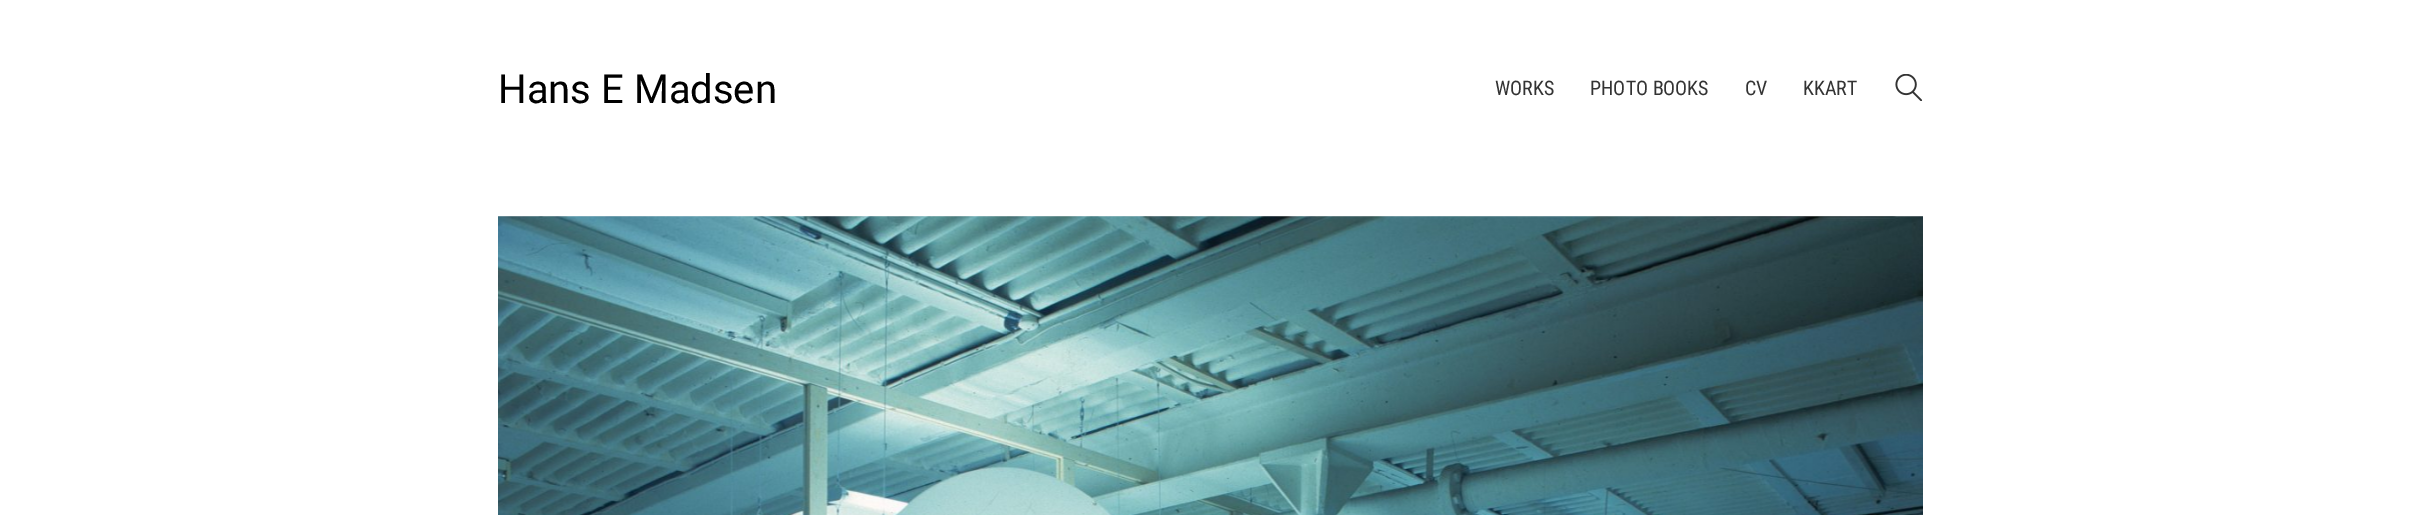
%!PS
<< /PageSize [2419 515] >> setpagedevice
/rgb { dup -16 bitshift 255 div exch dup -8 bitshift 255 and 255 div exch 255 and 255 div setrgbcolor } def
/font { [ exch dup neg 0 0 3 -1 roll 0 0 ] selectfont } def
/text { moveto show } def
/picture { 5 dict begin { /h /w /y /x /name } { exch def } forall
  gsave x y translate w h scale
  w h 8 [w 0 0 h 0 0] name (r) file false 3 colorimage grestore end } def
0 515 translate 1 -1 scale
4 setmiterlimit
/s1 { /Roboto-Regular 40 font 16#000000 rgb } def
/s2 { /RobotoCondensed-Regular 20 font 16#333333 rgb } def
16#FFFFFF rgb
0 0 2419 515 rectfill
s1
(Hans E Madsen) 498 103 text
s2
(WORKS) 1495 95 text
(PHOTO BOOKS) 1590 95 text
(CV) 1745 95 text
(KKART) 1803 95 text
(pic1.raw) 1895 74 28 27 picture
(pic2.raw) 498 216 1425 299 picture
showpage
